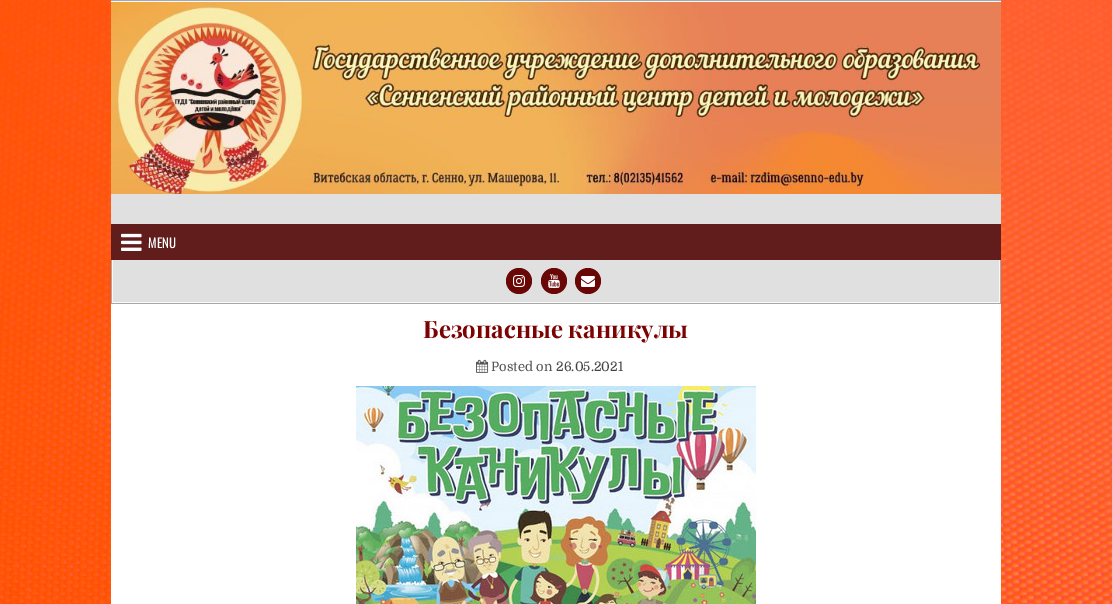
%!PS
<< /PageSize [1112 604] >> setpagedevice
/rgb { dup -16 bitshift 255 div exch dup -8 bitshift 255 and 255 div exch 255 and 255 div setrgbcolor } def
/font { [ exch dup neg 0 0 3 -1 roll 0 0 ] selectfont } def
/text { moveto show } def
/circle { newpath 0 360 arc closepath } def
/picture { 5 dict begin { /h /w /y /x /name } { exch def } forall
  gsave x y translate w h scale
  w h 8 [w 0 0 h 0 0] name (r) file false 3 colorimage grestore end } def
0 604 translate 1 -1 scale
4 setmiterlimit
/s1 { /Oswald-Regular 13 font 16#FFFFFF rgb } def
/s2 { /PlayfairDisplay-Bold 24 font 16#7D0303 rgb } def
/s3 { /Domine-Regular 13 font 16#555555 rgb } def
/s4 { /Domine-Regular 13 font 16#444444 rgb } def
16#FFFFFF rgb
0 0 1112 604 rectfill
(pic1.raw) 0 0 1112 604 picture
16#E0E0E0 rgb
111 194 890 30 rectfill
16#A8A8A8 rgb
111 0 890 1 rectfill
16#F9F9F9 rgb
111 1 890 1 rectfill
(pic2.raw) 111 2 890 192 picture
16#611C1C rgb
111 224 890 36 rectfill
(pic3.raw) 121 233 21 18 picture
s1
(MENU) 148 248 text
16#E0E0E0 rgb
113 260 886 42 rectfill
16#A8A8A8 rgb
1000 260 1 44 rectfill
111 303 890 1 rectfill
111 260 1 44 rectfill
16#F9F9F9 rgb
999 260 1 43 rectfill
112 302 888 1 rectfill
112 260 1 43 rectfill
16#690707 rgb
519 281 13 circle fill
(pic4.raw) 513 275 12 12 picture
554 281 13 circle fill
(pic5.raw) 548 274 12 14 picture
588 281 13 circle fill
(pic6.raw) 581 276 14 11 picture
16#FFFFFF rgb
111 304 890 300 rectfill
s2
(Безопасные каникулы) 423 338 text
(pic7.raw) 476 359 13 14 picture
s3
(Posted on) 491 371 text
s4
(26.05.2021) 556 371 text
(pic8.raw) 356 386 400 218 picture
showpage
